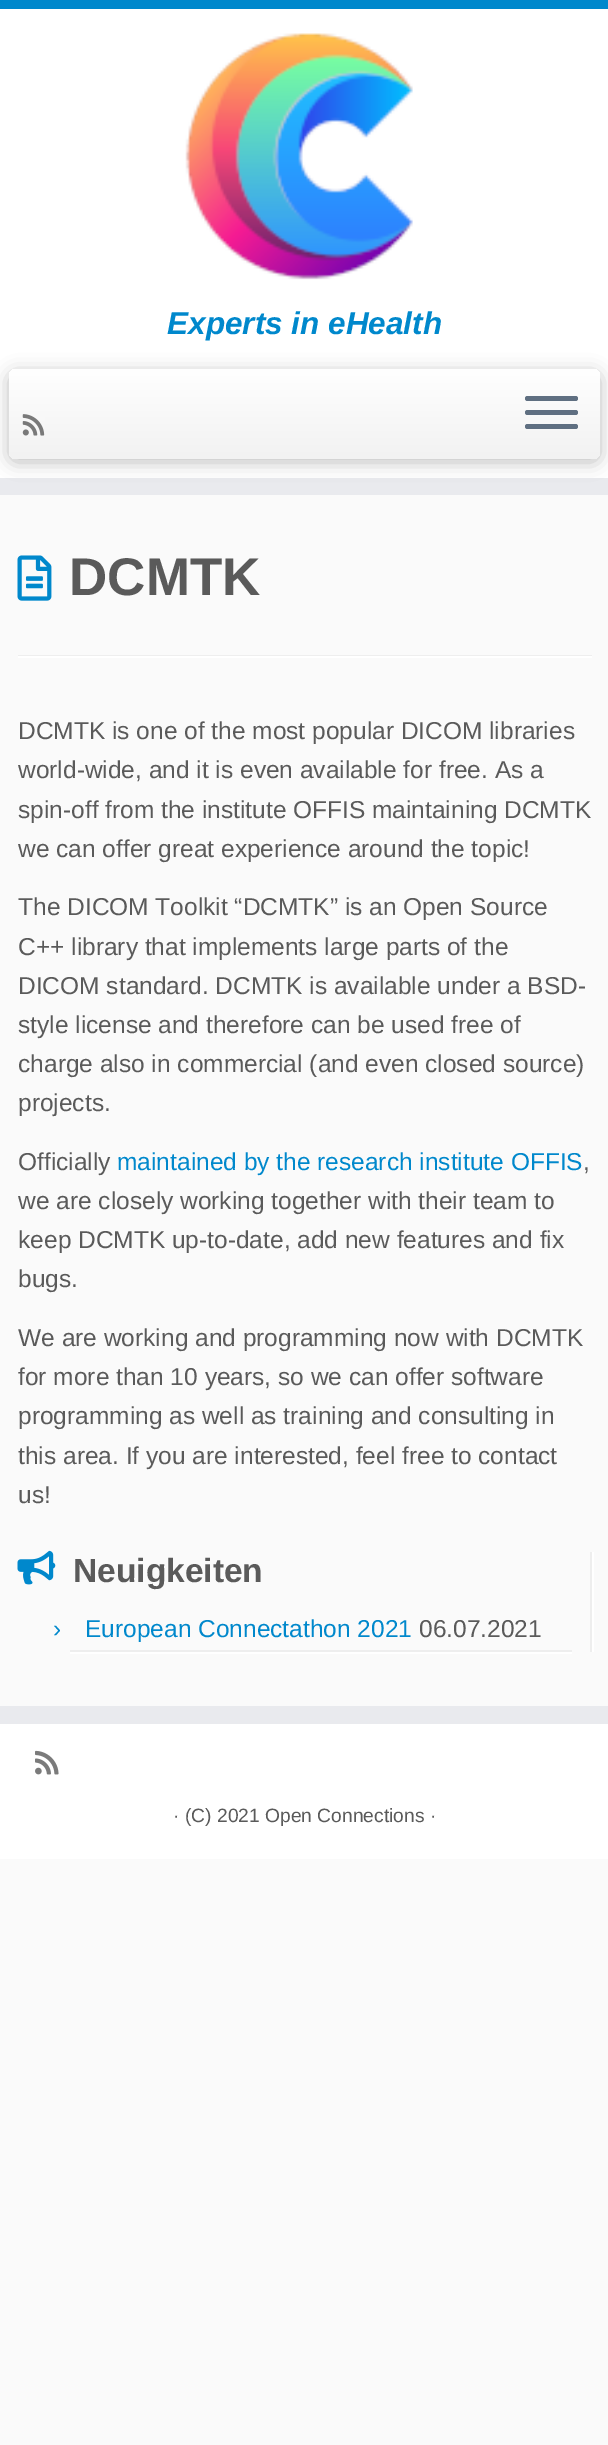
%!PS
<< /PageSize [608 2445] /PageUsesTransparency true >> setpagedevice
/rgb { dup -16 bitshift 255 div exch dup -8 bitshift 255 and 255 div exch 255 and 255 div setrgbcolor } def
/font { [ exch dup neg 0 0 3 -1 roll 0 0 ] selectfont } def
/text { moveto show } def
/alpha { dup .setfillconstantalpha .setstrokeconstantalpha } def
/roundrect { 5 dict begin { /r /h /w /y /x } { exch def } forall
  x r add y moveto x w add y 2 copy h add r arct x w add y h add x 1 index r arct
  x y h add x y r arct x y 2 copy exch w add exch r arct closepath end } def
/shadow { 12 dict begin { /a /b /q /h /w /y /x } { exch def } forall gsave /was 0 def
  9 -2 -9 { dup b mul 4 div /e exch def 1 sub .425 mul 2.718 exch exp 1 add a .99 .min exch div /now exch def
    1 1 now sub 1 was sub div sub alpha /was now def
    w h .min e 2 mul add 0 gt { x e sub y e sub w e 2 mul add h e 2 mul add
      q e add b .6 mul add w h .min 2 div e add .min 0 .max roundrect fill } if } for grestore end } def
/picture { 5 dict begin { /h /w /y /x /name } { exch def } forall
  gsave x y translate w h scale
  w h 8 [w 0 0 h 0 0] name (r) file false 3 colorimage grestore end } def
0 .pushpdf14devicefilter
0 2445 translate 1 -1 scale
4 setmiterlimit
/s1 { /LiberationSans-BoldItalic 31.5 font 16#0088CC rgb } def
/s2 { /LiberationSans-Bold 53 font 16#5A5A5A rgb } def
/s3 { /LiberationSans-Regular 24.5 font 16#5A5A5A rgb } def
/s4 { /LiberationSans-Regular 24.5 font 16#0088CC rgb } def
/s5 { /LiberationSans-Bold 33.5 font 16#5A5A5A rgb } def
/s6 { /LiberationSans-Regular 19.25 font 16#5A5A5A rgb } def
16#FAFAFA rgb
0 0 608 2445 rectfill
16#FFFFFF rgb
0 9 608 469 rectfill
16#0088CC rgb
0 0 608 9 rectfill
16#E9EAEE rgb
0 478 608 17 rectfill
(pic1.raw) 185 33 228 247 picture
s1
(Experts in eHealth) 167 334 text
16#000000 rgb
9 373 591 89 7 9 0.25 shadow
gsave 9 369 591 90 7 roundrect clip newpath
<< /ShadingType 2 /ColorSpace /DeviceRGB /Coords [305 369 305 459] /Extend [true true] /Function << /FunctionType 2 /Domain [0 1] /C0 [1 1 1] /C1 [0.949 0.949 0.949] /N 1 >> >> shfill grestore
(pic2.raw) 22 414 23 22 picture
16#5F6F81 rgb
525 396 53 5 2.5 roundrect fill
525 410 53 5 2.5 roundrect fill
525 424 53 5 2.5 roundrect fill
(pic3.raw) 17 555 35 46 picture
s2
(DCMTK) 69 595 text
16#EEEEEE rgb
18 655 574 1 rectfill
16#FFFFFF rgb
18 656 574 2 rectfill
s3
(DCMTK is one of the most popular DICOM libraries) 18 739 text
(world-wide, and it is even available for free. As a) 18 778 text
(spin-off from the institute OFFIS maintaining DCMTK) 18 818 text
(we can offer great experience around the topic!) 18 857 text
(The DICOM Toolkit “DCMTK” is an Open Source) 18 915 text
(C++ library that implements large parts of the) 18 955 text
(DICOM standard. DCMTK is available under a BSD-) 18 994 text
(style license and therefore can be used free of) 18 1033 text
(charge also in commercial \(and even closed source\)) 18 1072 text
(projects.) 18 1111 text
(Officially) 18 1170 text
s4
(maintained by the research institute OFFIS) 117 1170 text
s3
(,) 583 1170 text
(we are closely working together with their team to) 18 1209 text
(keep DCMTK up-to-date, add new features and fix) 18 1248 text
(bugs.) 18 1287 text
(We are working and programming now with DCMTK) 18 1346 text
(for more than 10 years, so we can offer software) 18 1385 text
(programming as well as training and consulting in) 18 1424 text
(this area. If you are interested, feel free to contact) 18 1464 text
(us!) 18 1503 text
16#EEEEEE rgb
590 1552 2 100 rectfill
(pic4.raw) 17 1550 39 35 picture
s5
(Neuigkeiten) 73 1582 text
16#EEEEEE rgb
70 1650 502 2 rectfill
s4
(›) 53 1637 text
(European Connectathon 2021) 85 1637 text
s3
(06.07.2021) 419 1637 text
16#FFFFFF rgb
70 1652 502 2 rectfill
592 1552 2 100 rectfill
16#E9EAEE rgb
0 1706 608 18 rectfill
16#FFFFFF rgb
0 1724 608 135 rectfill
(pic5.raw) 35 1750 24 25 picture
s6
(· \(C\) 2021 Open Connections ·) 173 1822 text
.poppdf14devicefilter showpage
